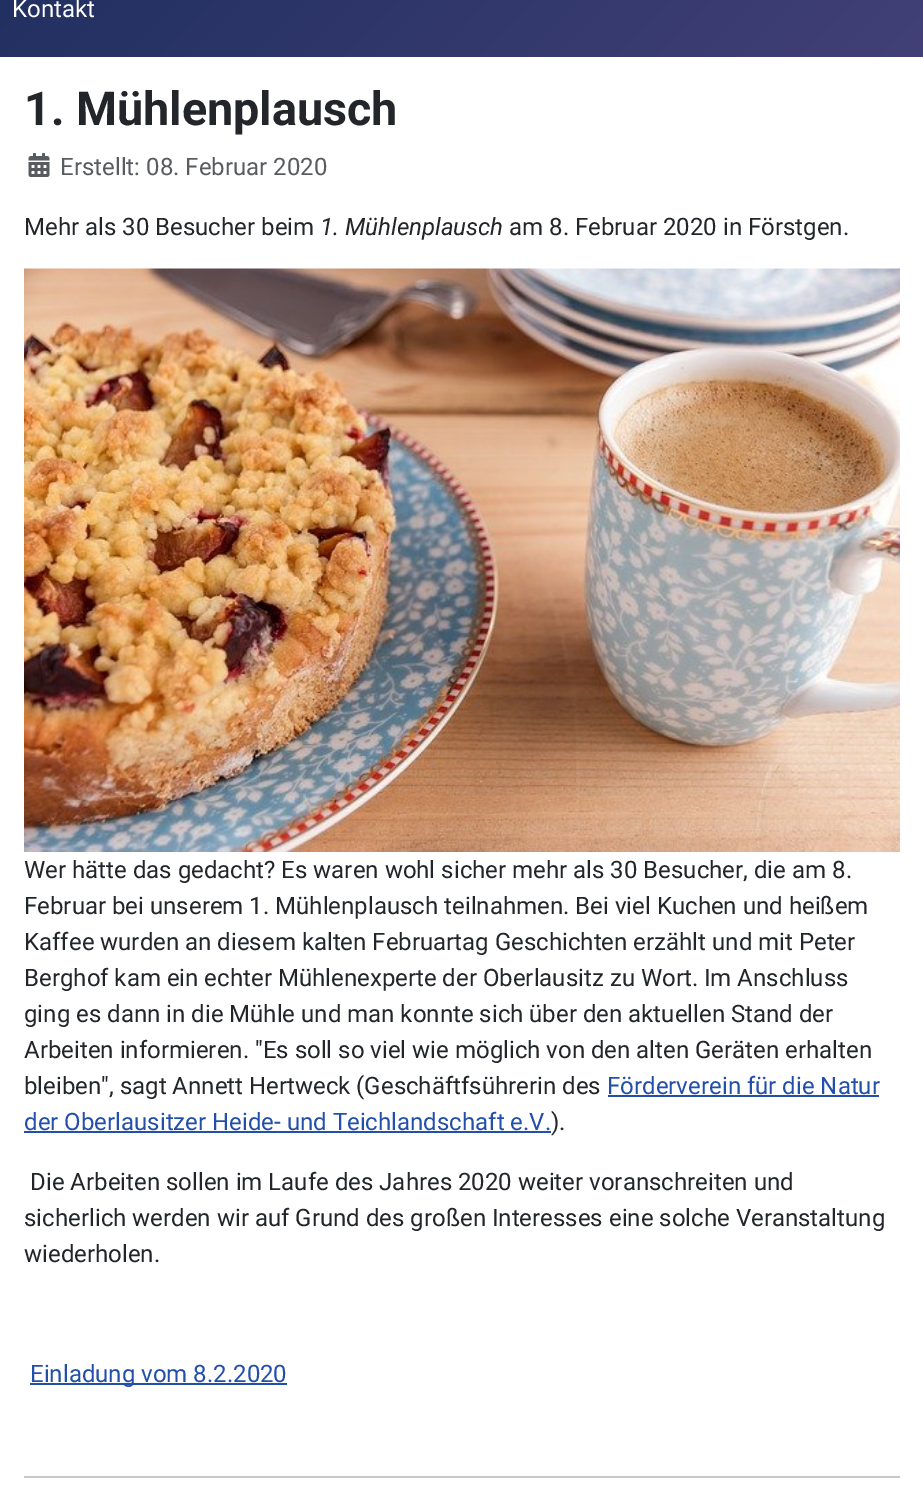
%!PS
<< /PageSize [923 1502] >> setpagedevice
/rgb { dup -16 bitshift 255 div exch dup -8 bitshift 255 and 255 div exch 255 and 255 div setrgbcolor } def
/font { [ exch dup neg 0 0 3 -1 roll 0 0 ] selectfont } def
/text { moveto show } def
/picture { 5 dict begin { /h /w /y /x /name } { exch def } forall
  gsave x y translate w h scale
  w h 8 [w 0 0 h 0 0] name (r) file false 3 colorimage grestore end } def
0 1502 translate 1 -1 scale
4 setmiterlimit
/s1 { /Roboto-Regular 24 font 16#FFFFFF rgb } def
/s2 { /Roboto-Bold 46.75 font 16#22262A rgb } def
/s3 { /Roboto-Regular 24 font 16#595C5F rgb } def
/s4 { /Roboto-Regular 24 font 16#22262A rgb } def
/s5 { /Roboto-Italic 24 font 16#22262A rgb } def
/s6 { /Roboto-Regular 24 font 16#224FAA rgb } def
16#FFFFFF rgb
0 0 923 1502 rectfill
gsave 0 0 moveto 923 0 lineto 923 57 lineto 0 57 lineto closepath clip newpath
<< /ShadingType 2 /ColorSpace /DeviceRGB /Coords [85 -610 839 143] /Extend [true true] /Function << /FunctionType 2 /Domain [0 1] /C0 [0.067 0.157 0.333] /C1 [0.259 0.251 0.467] /N 1 >> >> shfill grestore
s1
(Kontakt) 12 17 text
s2
(1. Mühlenplausch) 24 125 text
(pic1.raw) 28 153 22 24 picture
s3
(Erstellt: 08. Februar 2020) 60 175 text
s4
(Mehr als 30 Besucher beim) 24 235 text
s5
(1. Mühlenplausch) 320 235 text
s4
(am 8. Februar 2020 in Förstgen.) 509 235 text
(pic2.raw) 24 268 876 584 picture
(Wer hätte das gedacht? Es waren wohl sicher mehr als 30 Besucher, die am 8.) 24 878 text
(Februar bei unserem 1. Mühlenplausch teilnahmen. Bei viel Kuchen und heißem) 24 914 text
(Kaffee wurden an diesem kalten Februartag Geschichten erzählt und mit Peter) 24 950 text
(Berghof kam ein echter Mühlenexperte der Oberlausitz zu Wort. Im Anschluss) 24 986 text
(ging es dann in die Mühle und man konnte sich über den aktuellen Stand der) 24 1022 text
(Arbeiten informieren. "Es soll so viel wie möglich von den alten Geräten erhalten) 24 1058 text
(bleiben", sagt Annett Hertweck \(Geschäftfsührerin des) 24 1094 text
s6
(Förderverein für die Natur) 607 1094 text
608 1095 271 2 rectfill
(der Oberlausitzer Heide- und Teichlandschaft e.V.) 24 1130 text
24 1131 527 2 rectfill
s4
(\).) 551 1130 text
(Die Arbeiten sollen im Laufe des Jahres 2020 weiter voranschreiten und) 30 1190 text
(sicherlich werden wir auf Grund des großen Interesses eine solche Veranstaltung) 24 1226 text
(wiederholen.) 24 1262 text
16#224FAA rgb
30 1383 257 2 rectfill
(Einladung vom 8.2.2020) 30 1382 text
16#C8C9CA rgb
24 1476 876 2 rectfill
showpage
